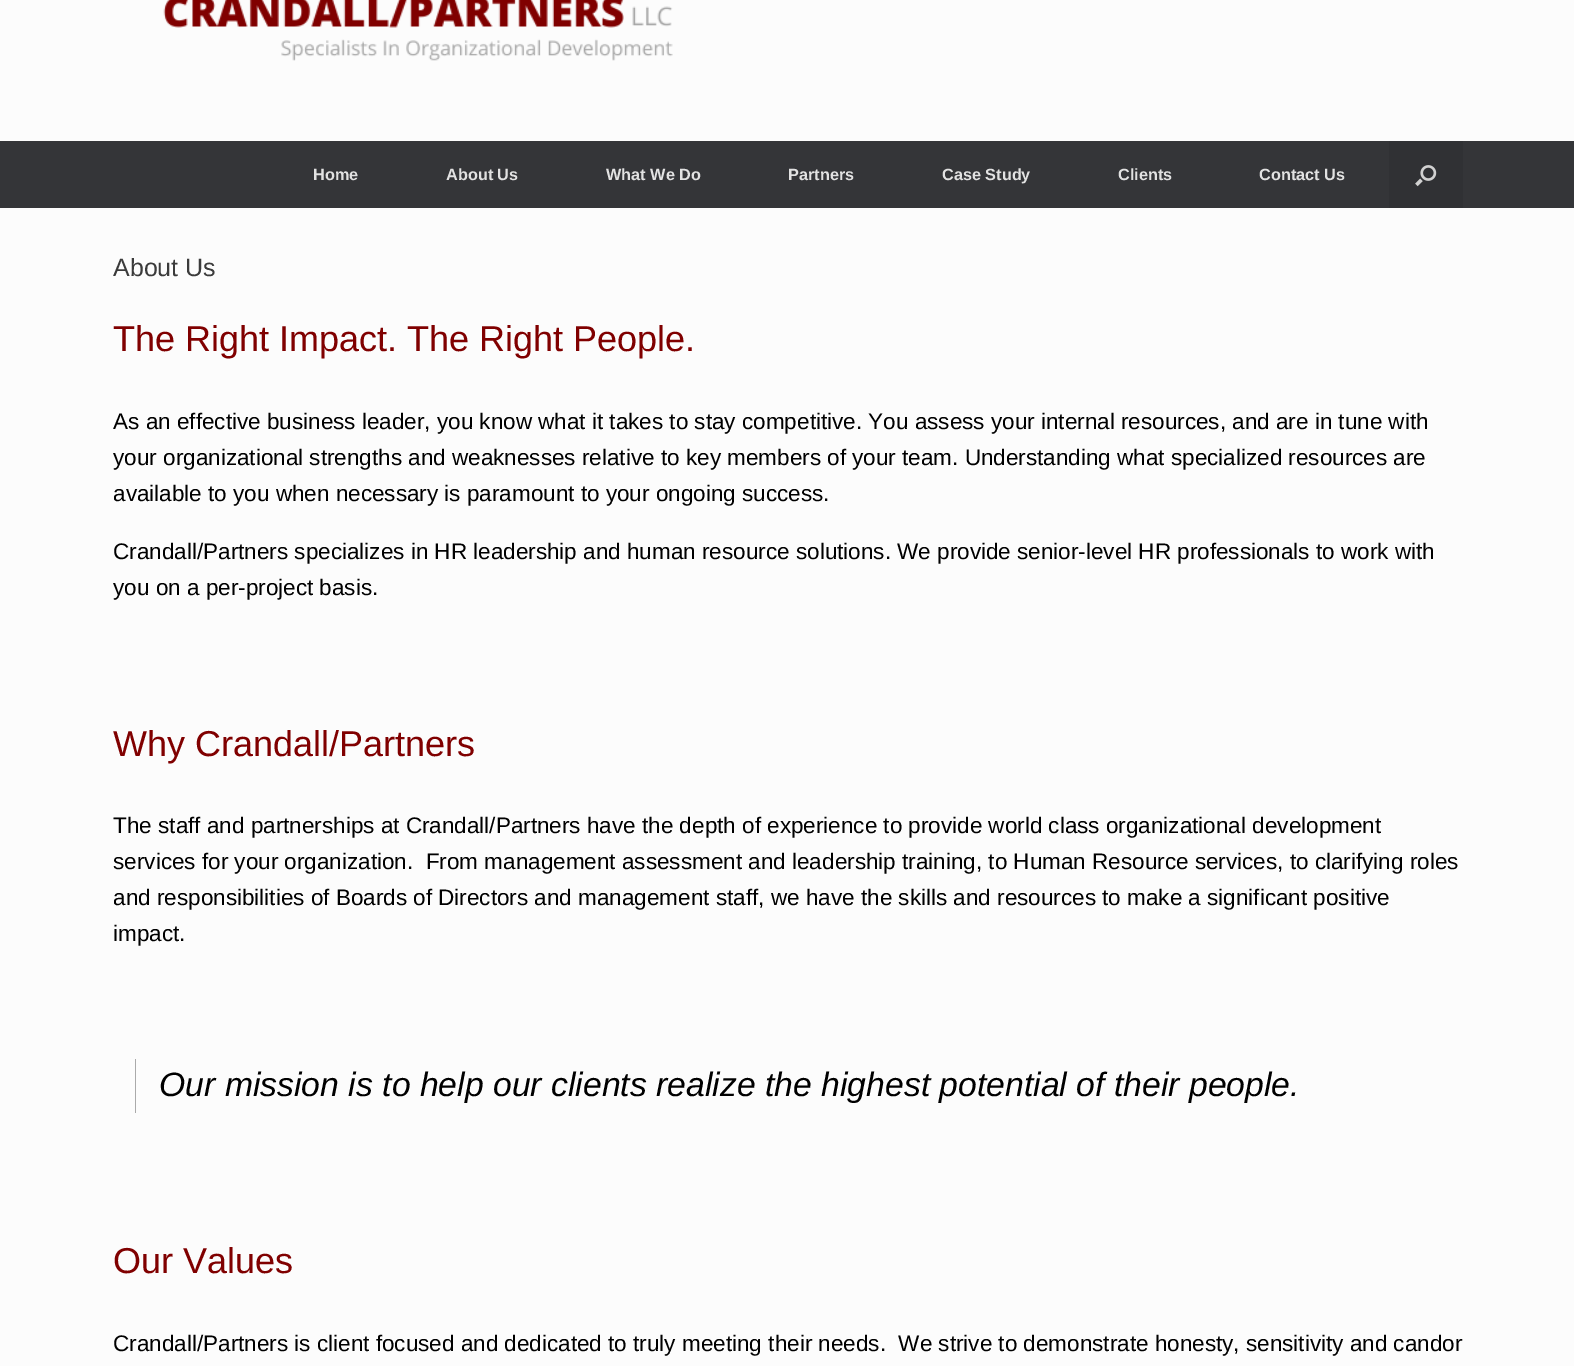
%!PS
<< /PageSize [1574 1366] >> setpagedevice
/rgb { dup -16 bitshift 255 div exch dup -8 bitshift 255 and 255 div exch 255 and 255 div setrgbcolor } def
/font { [ exch dup neg 0 0 3 -1 roll 0 0 ] selectfont } def
/text { moveto show } def
/picture { 5 dict begin { /h /w /y /x /name } { exch def } forall
  gsave x y translate w h scale
  w h 8 [w 0 0 h 0 0] name (r) file false 3 colorimage grestore end } def
0 1366 translate 1 -1 scale
4 setmiterlimit
/s1 { /LiberationSans-Bold 16.25 font 16#E2E2E2 rgb } def
/s2 { /LiberationSans-Regular 25 font 16#3B3B3B rgb } def
/s3 { /LiberationSans-Regular 36 font 16#800000 rgb } def
/s4 { /LiberationSans-Regular 22.5 font 16#000000 rgb } def
/s5 { /LiberationSans-Italic 33.75 font 16#000000 rgb } def
16#FCFCFC rgb
0 0 1574 1366 rectfill
(pic1.raw) 163 0 510 61 picture
16#343538 rgb
0 141 1574 67 rectfill
s1
(Home) 313 180 text
(About Us) 446 180 text
(What We Do) 606 180 text
(Partners) 788 180 text
(Case Study) 942 180 text
(Clients) 1118 180 text
(Contact Us) 1259 180 text
16#303134 rgb
1389 141 74 67 rectfill
(pic2.raw) 1415 165 22 22 picture
s2
(About Us) 113 276 text
s3
(The Right Impact. The Right People.) 113 351 text
s4
(As an effective business leader, you know what it takes to stay competitive. You assess your internal resources, and are in tune with) 113 429 text
(your organizational strengths and weaknesses relative to key members of your team. Understanding what specialized resources are) 113 465 text
(available to you when necessary is paramount to your ongoing success.) 113 501 text
(Crandall/Partners specializes in HR leadership and human resource solutions. We provide senior-level HR professionals to work with) 113 559 text
(you on a per-project basis.) 113 595 text
s3
(Why Crandall/Partners) 113 756 text
s4
(The staff and partnerships at Crandall/Partners have the depth of experience to provide world class organizational development) 113 833 text
(services for your organization.  From management assessment and leadership training, to Human Resource services, to clarifying roles) 113 869 text
(and responsibilities of Boards of Directors and management staff, we have the skills and resources to make a significant positive) 113 905 text
(impact.) 113 941 text
16#AAAAAA rgb
135 1059 1 54 rectfill
s5
(Our mission is to help our clients realize the highest potential of their people.) 159 1096 text
s3
(Our Values) 113 1273 text
s4
(Crandall/Partners is client focused and dedicated to truly meeting their needs.  We strive to demonstrate honesty, sensitivity and candor) 113 1351 text
showpage
